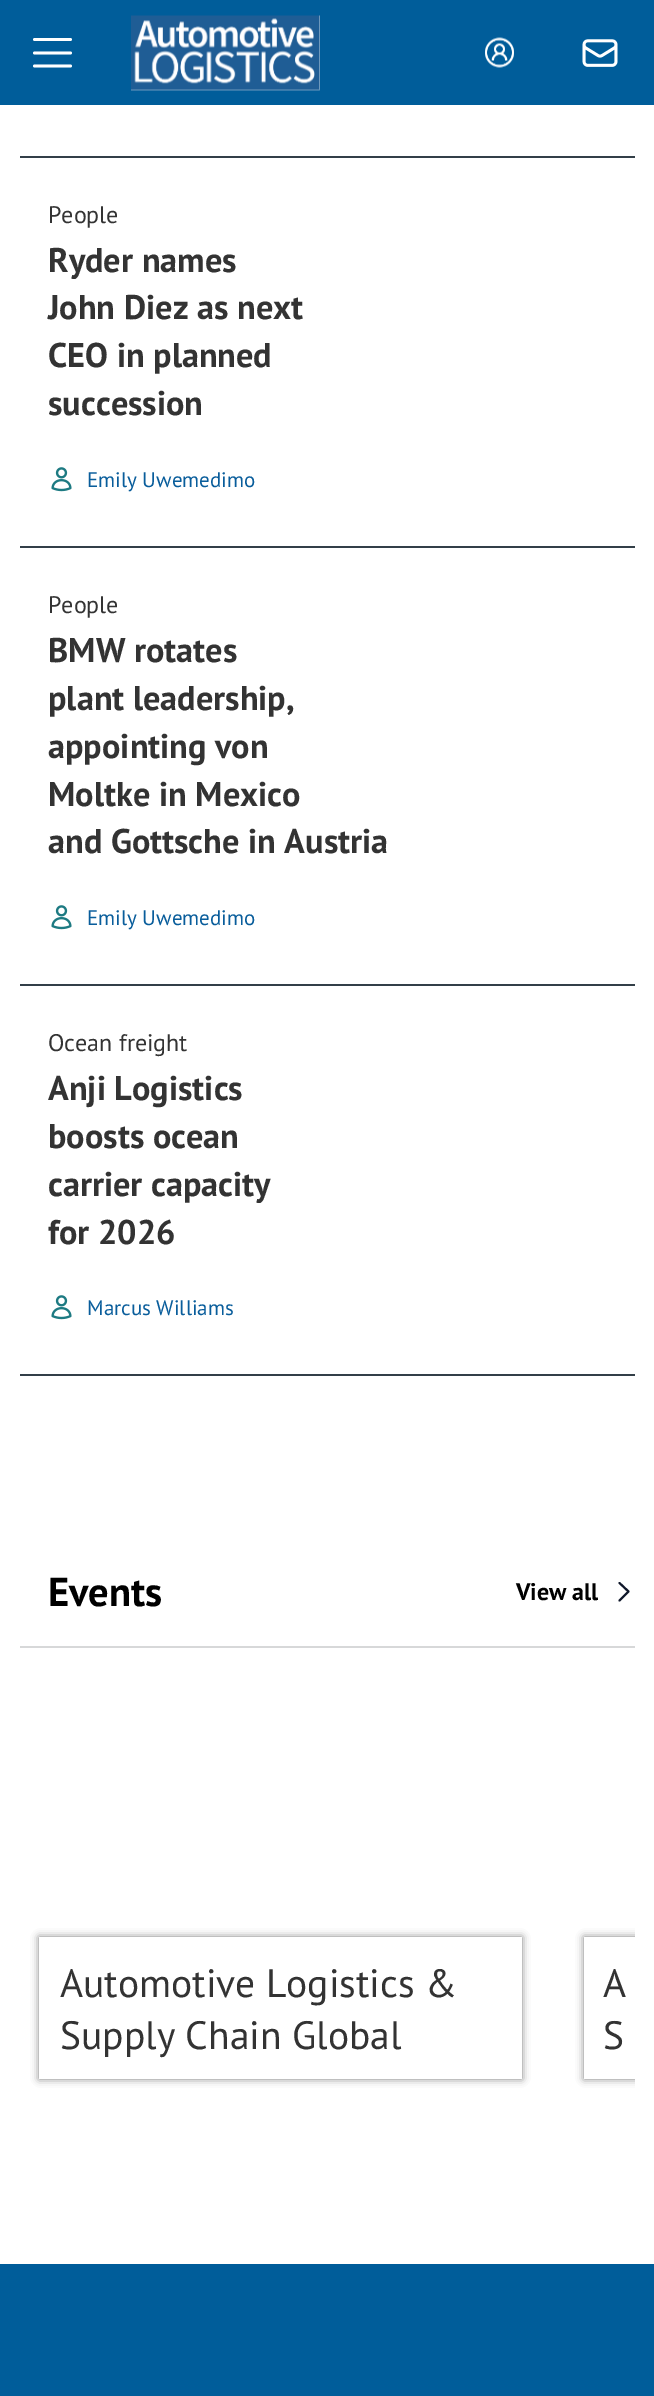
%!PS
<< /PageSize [654 2396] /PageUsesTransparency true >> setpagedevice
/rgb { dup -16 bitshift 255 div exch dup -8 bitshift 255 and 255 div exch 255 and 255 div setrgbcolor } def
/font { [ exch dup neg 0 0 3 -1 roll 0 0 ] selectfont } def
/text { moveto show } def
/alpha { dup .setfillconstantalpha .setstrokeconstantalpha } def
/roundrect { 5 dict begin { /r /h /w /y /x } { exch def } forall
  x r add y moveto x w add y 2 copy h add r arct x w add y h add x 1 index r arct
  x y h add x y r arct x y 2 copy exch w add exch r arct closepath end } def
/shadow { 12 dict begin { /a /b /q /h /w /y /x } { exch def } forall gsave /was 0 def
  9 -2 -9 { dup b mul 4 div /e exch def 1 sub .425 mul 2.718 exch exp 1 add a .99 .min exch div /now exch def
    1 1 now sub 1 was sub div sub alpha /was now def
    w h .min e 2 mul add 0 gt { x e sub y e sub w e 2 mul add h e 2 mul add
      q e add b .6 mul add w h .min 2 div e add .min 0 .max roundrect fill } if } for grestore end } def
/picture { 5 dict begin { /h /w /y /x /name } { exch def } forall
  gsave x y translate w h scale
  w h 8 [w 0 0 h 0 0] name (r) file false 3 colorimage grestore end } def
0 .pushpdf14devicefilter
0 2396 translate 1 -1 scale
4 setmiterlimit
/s1 { /PTSans-Regular 24 font 16#333333 rgb } def
/s2 { /PTSans-Bold 34.25 font 16#333333 rgb } def
/s3 { /PTSans-Regular 21 font 16#095D9B rgb } def
/s4 { /PTSans-Bold 40.5 font 16#000000 rgb } def
/s5 { /PTSans-Bold 24 font 16#000000 rgb } def
/s6 { /PTSans-Regular 39.5 font 16#333333 rgb } def
16#FFFFFF rgb
0 0 654 2396 rectfill
16#005D9A rgb
0 0 654 105 rectfill
16#FFFFFF rgb
2.8 setlinewidth
1 setlinecap
34.5 39.5 moveto 70.5 39.5 lineto 34.5 53 moveto 70.5 53 lineto 34.5 66 moveto 70.5 66 lineto stroke
(pic1.raw) 131 15 189 76 picture
(pic2.raw) 485 37 29 31 picture
(pic3.raw) 582 39 36 28 picture
16#333F48 rgb
20 156 615 2 rectfill
20 546 615 2 rectfill
s1
(People) 48 223 text
s2
(Ryder names) 48 272 text
(John Diez as next) 48 319 text
(CEO in planned) 48 367 text
(succession) 48 415 text
(pic4.raw) 51 467 21 25 picture
s3
(Emily Uwemedimo) 87 487 text
16#333F48 rgb
20 984 615 2 rectfill
s1
(People) 48 613 text
s2
(BMW rotates) 48 662 text
(plant leadership,) 48 710 text
(appointing von) 48 758 text
(Moltke in Mexico) 48 806 text
(and Gottsche in Austria) 48 853 text
(pic4.raw) 51 905 21 25 picture
s3
(Emily Uwemedimo) 87 925 text
16#333F48 rgb
20 1374 615 2 rectfill
s1
(Ocean freight) 48 1051 text
s2
(Anji Logistics) 48 1100 text
(boosts ocean) 48 1148 text
(carrier capacity) 48 1196 text
(for 2026) 48 1244 text
(pic4.raw) 51 1295 21 25 picture
s3
(Marcus Williams) 87 1315 text
16#D7D8D9 rgb
20 1646 615 2 rectfill
s4
(Events) 48 1606 text
s5
(View all) 516 1600 text
16#0F172A rgb
2 setlinewidth
1 setlinejoin
619.5 1583 moveto 628.5 1591.5 lineto 619.5 1600.5 lineto stroke
gsave
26 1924 moveto 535 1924 lineto 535 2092 lineto 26 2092 lineto closepath 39 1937 moveto 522 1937 lineto 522 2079 lineto 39 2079 lineto closepath eoclip newpath
16#000000 rgb
39 1937 483 142 0 4 0.5 shadow
grestore
s6
(Automotive Logistics &) 60 1997 text
(Supply Chain Global) 60 2049 text
gsave
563 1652 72 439 rectclip
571 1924 moveto 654 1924 lineto 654 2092 lineto 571 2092 lineto closepath 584 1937 moveto 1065 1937 lineto 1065 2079 lineto 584 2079 lineto closepath eoclip newpath
16#000000 rgb
584 1937 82 142 0 4 0.5 shadow
grestore
(A) 603 1997 text
(S) 603 2049 text
16#005D9A rgb
0 2264 654 132 rectfill
.poppdf14devicefilter showpage
